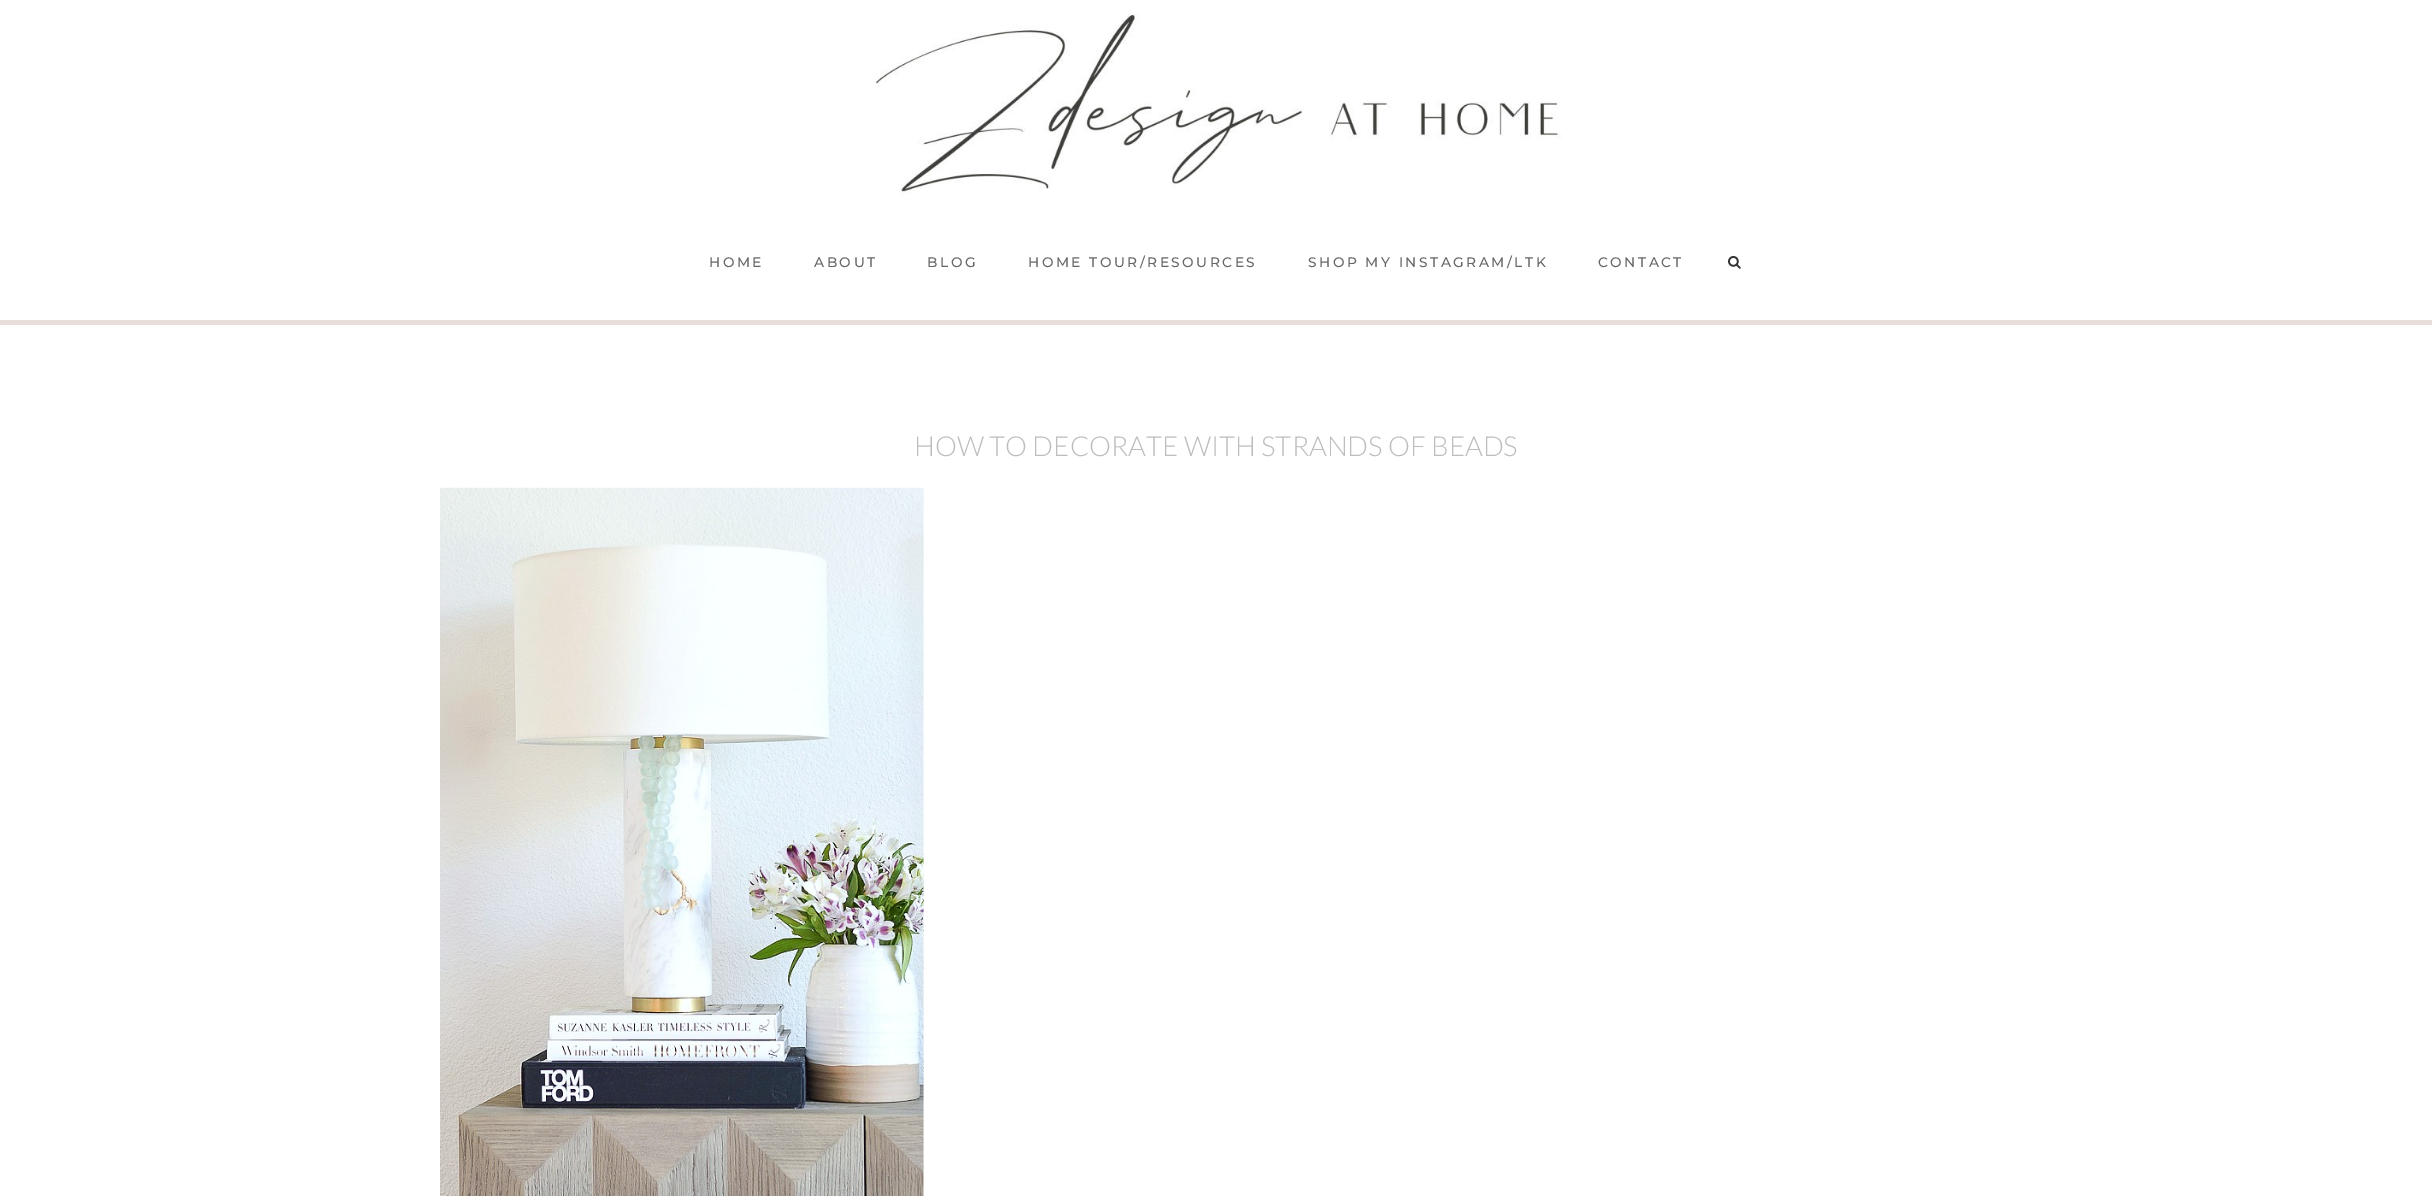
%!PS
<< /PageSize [2432 1196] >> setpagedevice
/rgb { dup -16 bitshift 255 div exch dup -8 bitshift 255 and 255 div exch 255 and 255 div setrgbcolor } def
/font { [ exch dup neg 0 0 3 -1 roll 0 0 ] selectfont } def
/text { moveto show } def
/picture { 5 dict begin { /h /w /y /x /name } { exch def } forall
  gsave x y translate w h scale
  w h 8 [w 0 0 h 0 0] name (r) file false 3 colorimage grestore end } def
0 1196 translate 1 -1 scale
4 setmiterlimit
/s1 { /Lato-Light 27.5 font 16#BDBDBD rgb } def
16#FFFFFF rgb
0 0 2432 1196 rectfill
(pic1.raw) 874 13 688 182 picture
16#E8DFDA rgb
0 320 2432 5 rectfill
/Montserrat-Thin 13.75 font
16#666666 rgb
709 267 moveto 2.5 0 (HOME) ashow
814 267 moveto 2.5 0 (ABOUT) ashow
927 267 moveto 2.5 0 (BLOG) ashow
1028 267 moveto 2.5 0 (HOME TOUR/RESOURCES) ashow
1308 267 moveto 2.5 0 (SHOP MY INSTAGRAM/LTK) ashow
1598 267 moveto 2.5 0 (CONTACT) ashow
(pic2.raw) 1728 256 13 13 picture
s1
(HOW TO DECORATE WITH STRANDS OF BEADS) 914 456 text
(pic3.raw) 440 487 484 709 picture
showpage
